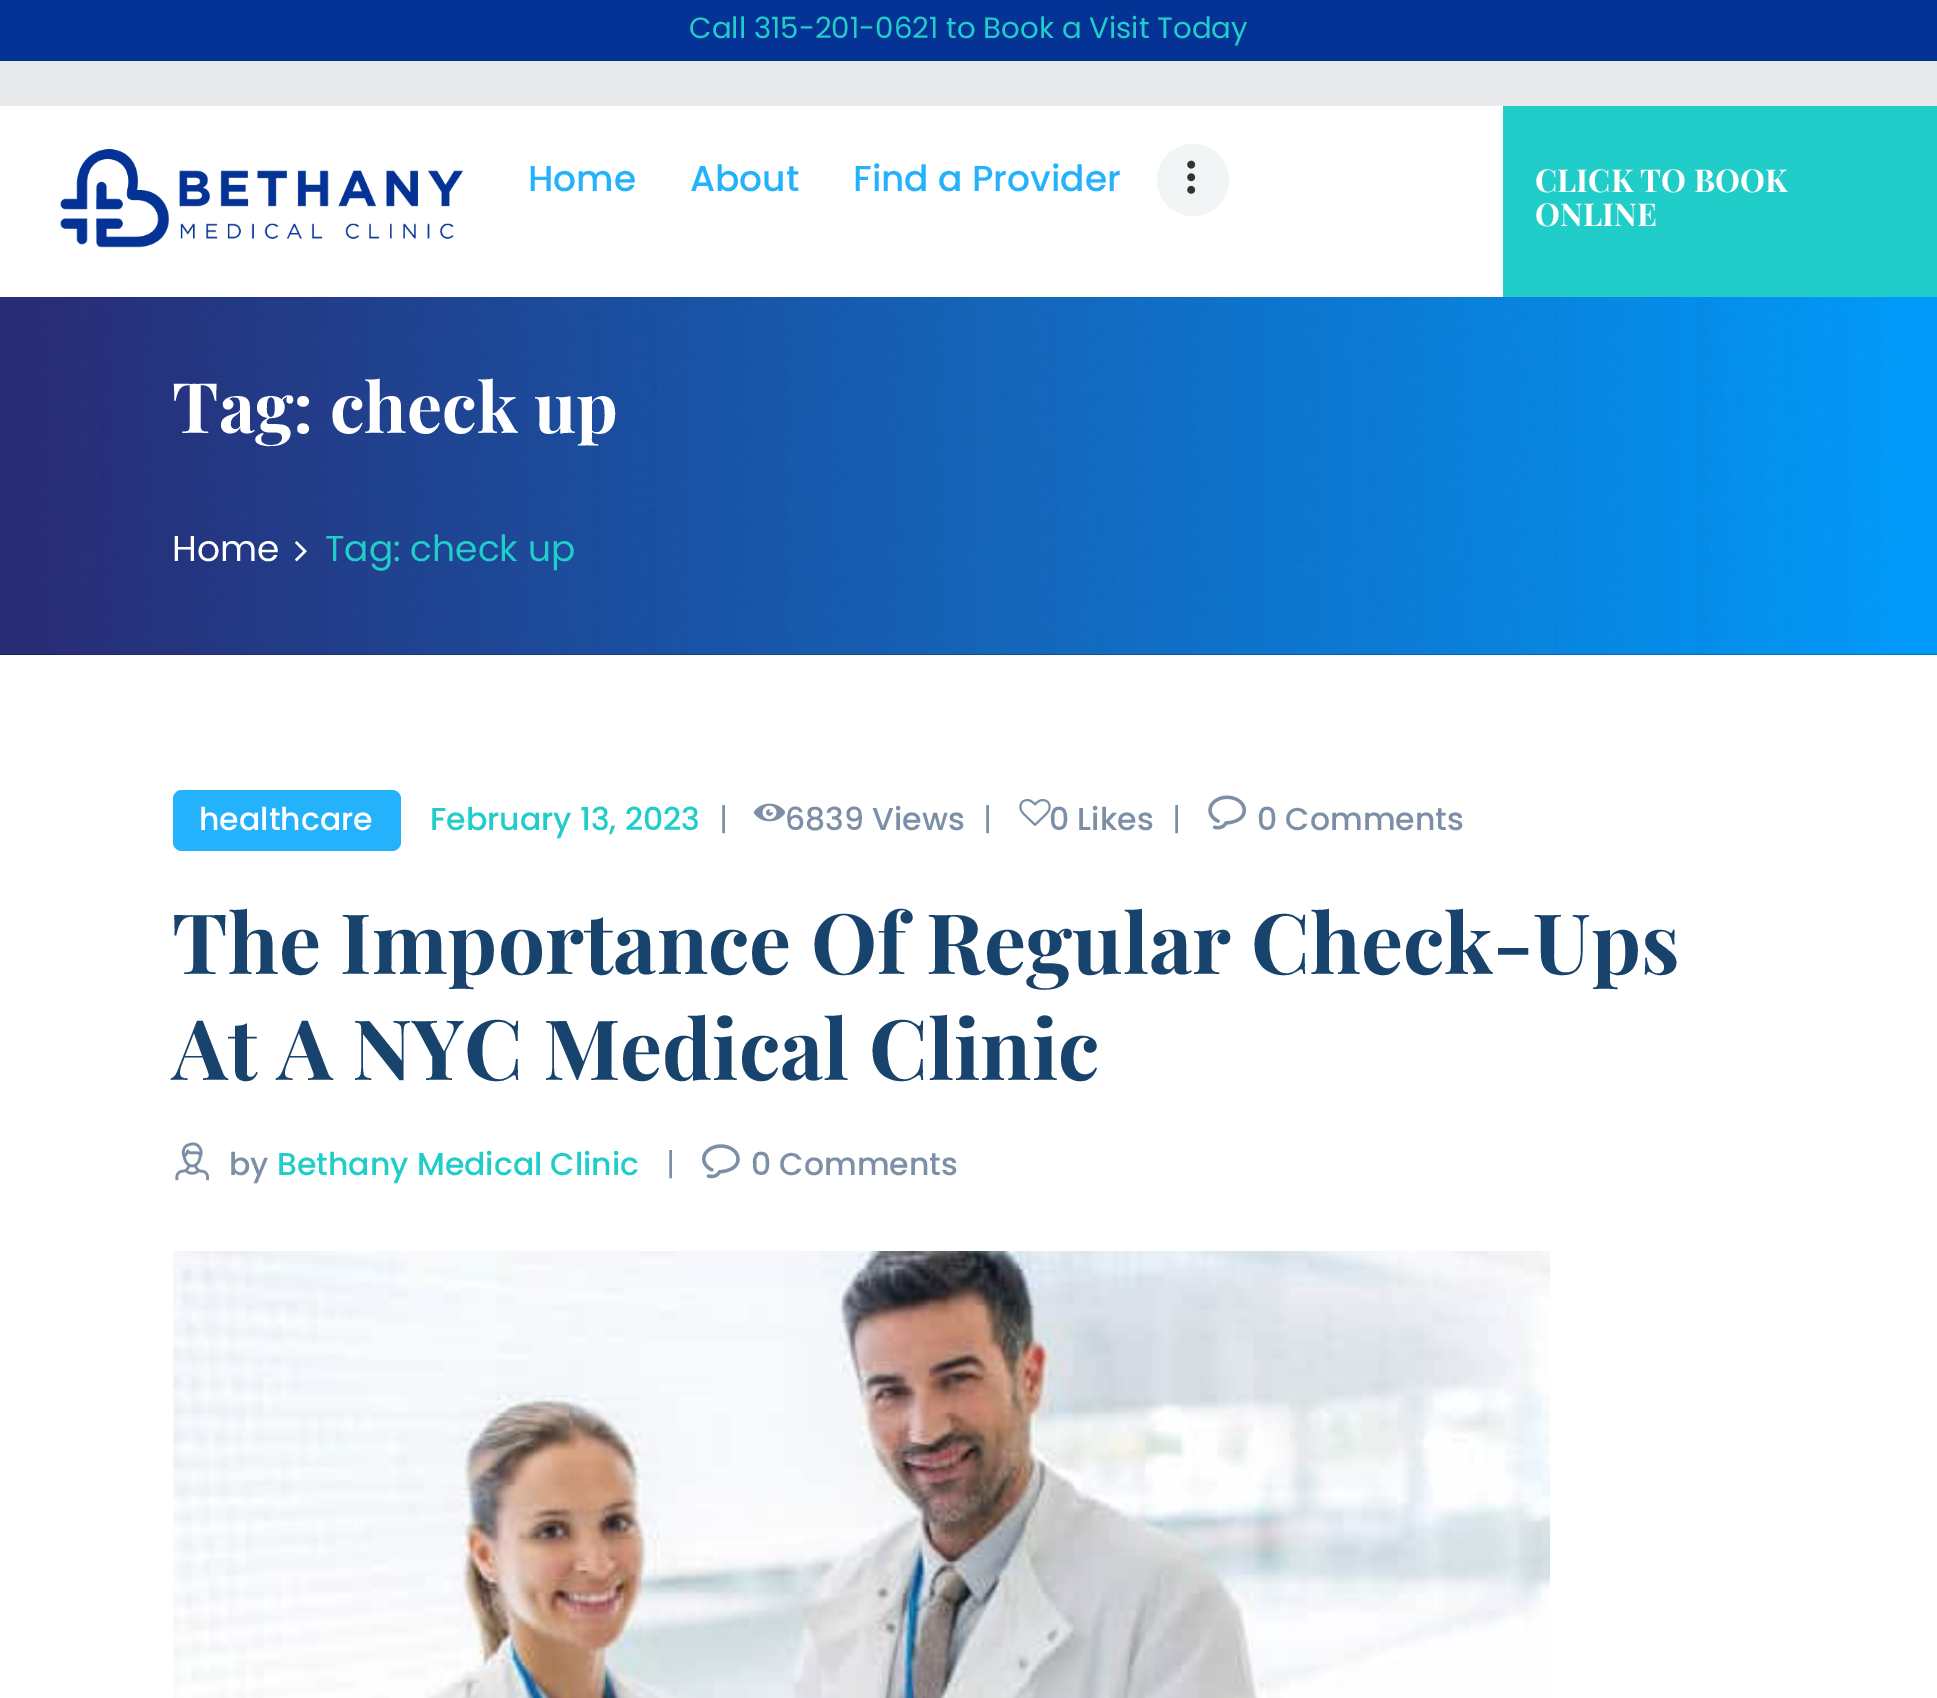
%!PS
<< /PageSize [1937 1698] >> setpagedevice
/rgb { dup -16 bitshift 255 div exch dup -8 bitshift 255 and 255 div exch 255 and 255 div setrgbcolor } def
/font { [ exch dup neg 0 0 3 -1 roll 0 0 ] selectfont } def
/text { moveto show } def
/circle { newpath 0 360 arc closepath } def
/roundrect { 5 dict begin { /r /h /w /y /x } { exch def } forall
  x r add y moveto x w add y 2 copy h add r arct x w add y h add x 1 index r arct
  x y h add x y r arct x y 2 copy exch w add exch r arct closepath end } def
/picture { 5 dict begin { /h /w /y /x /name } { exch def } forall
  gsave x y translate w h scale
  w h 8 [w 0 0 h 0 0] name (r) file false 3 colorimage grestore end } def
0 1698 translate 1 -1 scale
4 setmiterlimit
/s1 { /Poppins-Regular 29.25 font 16#21CDC8 rgb } def
/s2 { /Poppins-Medium 36 font 16#25B2FC rgb } def
/s3 { /PlayfairDisplay-Bold 31.5 font 16#FFFFFF rgb } def
/s4 { /PlayfairDisplay-Bold 69.75 font 16#FFFFFF rgb } def
/s5 { /Poppins-Regular 36 font 16#FFFFFF rgb } def
/s6 { /Poppins-Regular 36 font 16#21CDC8 rgb } def
/s7 { /Poppins-Medium 31.5 font 16#FFFFFF rgb } def
/s8 { /Poppins-Medium 31.5 font 16#21CDC8 rgb } def
/s9 { /Poppins-Regular 31.5 font 16#7C8FA7 rgb } def
/s10 { /Poppins-Medium 31.5 font 16#7C8FA7 rgb } def
/s11 { /PlayfairDisplay-Bold 83.6 font 16#17436D rgb } def
16#E7E9EA rgb
0 0 1937 1698 rectfill
16#043395 rgb
0 0 1937 61 rectfill
s1
(Call 315-201-0621 to Book a Visit Today) 689 38 text
16#FFFFFF rgb
0 106 1937 1592 rectfill
(pic1.raw) 60 149 403 99 picture
s2
(Home) 528 191 text
(About) 690 191 text
(Find a Provider) 853 191 text
16#F2F5F5 rgb
1193 180 36 circle fill
(pic2.raw) 1187 160 9 34 picture
16#21CDC8 rgb
1503 106 434 191 rectfill
s3
(CLICK TO BOOK) 1535 192 text
(ONLINE) 1535 226 text
(pic3.raw) 0 297 1937 358 picture
s4
(Tag: check up) 172 433 text
s5
(Home) 172 561 text
(pic4.raw) 295 541 12 21 picture
s6
(Tag: check up) 325 561 text
16#25B2FC rgb
173 790 228 61 9 roundrect fill
s7
(healthcare) 199 830 text
s8
(February 13, 2023) 430 830 text
s9
(|) 719 830 text
(pic5.raw) 753 803 33 19 picture
s10
(6839 Views) 785 830 text
s9
(|) 983 830 text
(pic6.raw) 1019 799 32 27 picture
s10
(0 Likes) 1049 830 text
s9
(|) 1172 830 text
(pic7.raw) 1208 795 38 35 picture
s10
(0 Comments) 1257 830 text
s11
(The Importance Of Regular Check-Ups) 172 974 text
(At A NYC Medical Clinic) 172 1080 text
(pic8.raw) 175 1142 34 39 picture
s10
(by) 229 1175 text
s8
(Bethany Medical Clinic) 277 1175 text
s9
(|) 666 1175 text
(pic9.raw) 702 1144 38 35 picture
s10
(0 Comments) 751 1175 text
(pic10.raw) 173 1251 1377 447 picture
showpage
